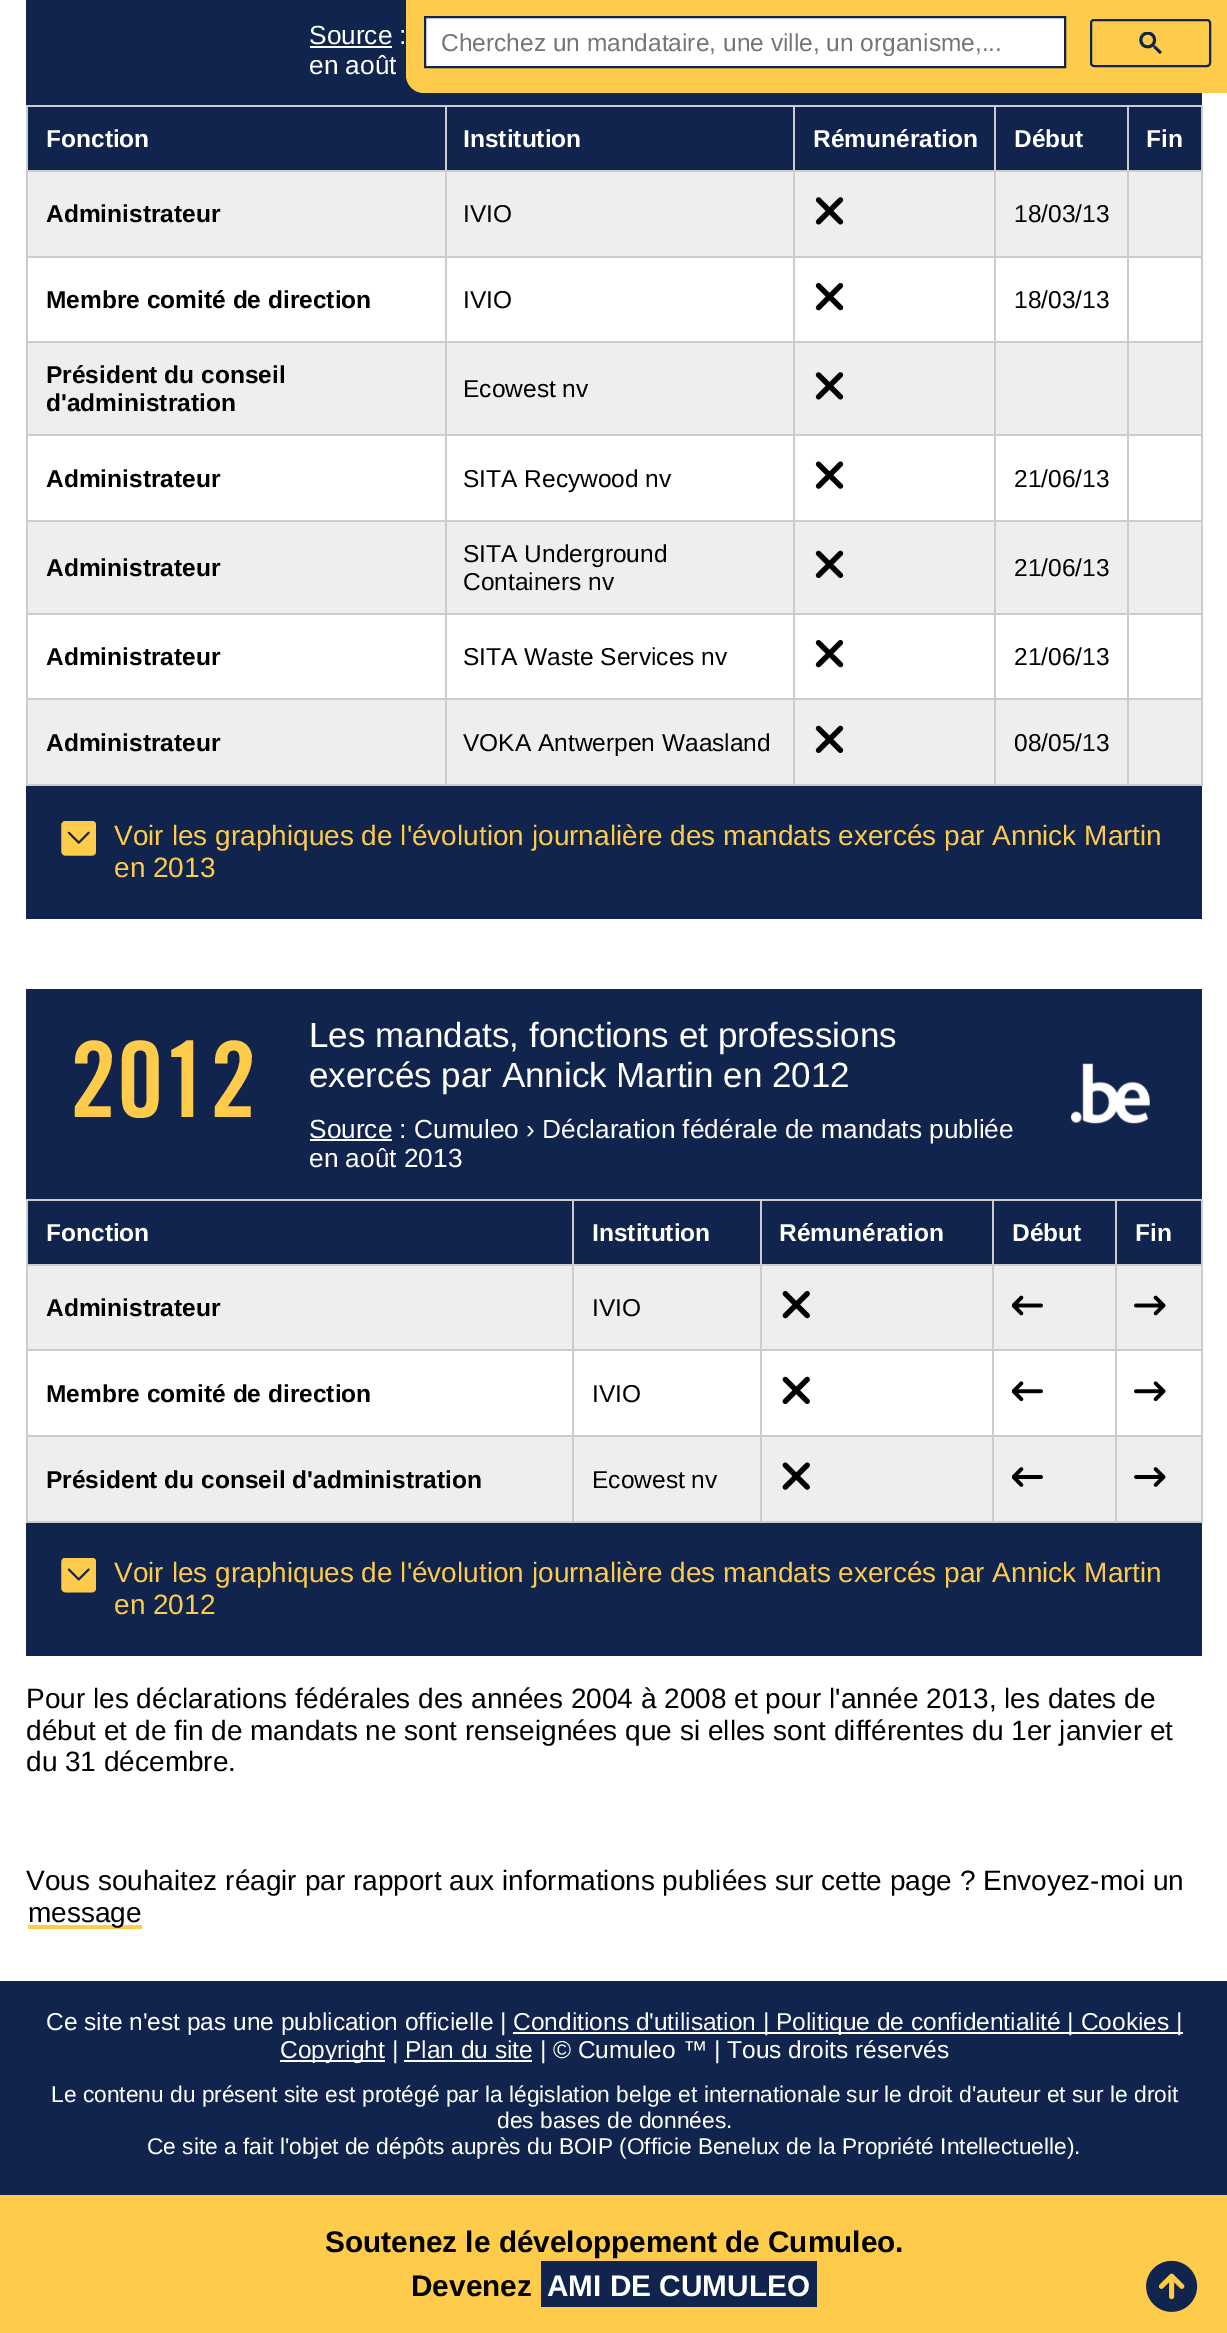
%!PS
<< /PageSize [1227 2333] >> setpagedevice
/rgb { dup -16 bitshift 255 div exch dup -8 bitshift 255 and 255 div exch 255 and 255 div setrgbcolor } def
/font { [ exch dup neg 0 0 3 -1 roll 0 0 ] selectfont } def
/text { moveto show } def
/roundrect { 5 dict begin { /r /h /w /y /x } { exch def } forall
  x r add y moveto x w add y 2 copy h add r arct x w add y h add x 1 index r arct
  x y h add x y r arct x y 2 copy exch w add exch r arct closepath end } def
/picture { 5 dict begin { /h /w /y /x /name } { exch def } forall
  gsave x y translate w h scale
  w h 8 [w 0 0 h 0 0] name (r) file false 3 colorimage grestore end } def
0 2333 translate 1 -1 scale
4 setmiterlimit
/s1 { /LiberationSans-Regular 26.25 font 16#FFFFFF rgb } def
/s2 { /LiberationSans-Bold 24.5 font 16#FFFFFF rgb } def
/s3 { /LiberationSans-Bold 24.5 font 16#000000 rgb } def
/s4 { /LiberationSans-Regular 24.5 font 16#000000 rgb } def
/s5 { /LiberationSans-Regular 28 font 16#FECB4B rgb } def
/s6 { /TradeGothic-Bold 105 font 16#FECB4B rgb } def
/s7 { /LiberationSans-Regular 35 font 16#FFFFFF rgb } def
/s8 { /LiberationSans-Regular 28 font 16#000000 rgb } def
/s9 { /LiberationSans-Regular 24.5 font 16#757575 rgb } def
/s10 { /LiberationSans-Regular 24.5 font 16#FFFFFF rgb } def
/s11 { /LiberationSans-Regular 22.75 font 16#FFFFFF rgb } def
/s12 { /LiberationSans-Bold 29.75 font 16#000000 rgb } def
/s13 { /LiberationSans-Bold 29.75 font 16#FFFFFF rgb } def
16#FFFFFF rgb
0 0 1227 2333 rectfill
16#10244D rgb
26 0 1176 105 rectfill
s1
(Source :) 309 44 text
310 46 82 2 rectfill
(en août) 309 74 text
16#10244D rgb
28 107 417 63 rectfill
16#CCCCCC rgb
1127 105 75 2 rectfill
1127 170 75 2 rectfill
16#EEEEEE rgb
28 172 1173 84 rectfill
16#CCCCCC rgb
1127 256 75 2 rectfill
1127 341 75 2 rectfill
16#EEEEEE rgb
28 343 1173 91 rectfill
16#CCCCCC rgb
1127 434 75 2 rectfill
1127 520 75 2 rectfill
16#EEEEEE rgb
28 522 1173 91 rectfill
16#CCCCCC rgb
1127 613 75 2 rectfill
1127 698 75 2 rectfill
16#EEEEEE rgb
28 700 1173 84 rectfill
16#CCCCCC rgb
1201 698 2 88 rectfill
1127 784 75 2 rectfill
1127 698 2 88 rectfill
994 698 135 2 rectfill
1127 613 2 87 rectfill
994 613 135 2 rectfill
1127 520 2 94 rectfill
994 520 135 2 rectfill
1127 434 2 88 rectfill
994 434 135 2 rectfill
1127 341 2 95 rectfill
994 341 135 2 rectfill
1127 256 2 87 rectfill
994 256 135 2 rectfill
1127 170 2 87 rectfill
994 170 135 2 rectfill
1127 105 2 67 rectfill
994 105 135 2 rectfill
994 784 135 2 rectfill
994 698 2 88 rectfill
793 698 203 2 rectfill
994 613 2 87 rectfill
793 613 203 2 rectfill
994 520 2 94 rectfill
793 520 203 2 rectfill
994 434 2 88 rectfill
793 434 203 2 rectfill
994 341 2 95 rectfill
793 341 203 2 rectfill
994 256 2 87 rectfill
793 256 203 2 rectfill
994 170 2 87 rectfill
793 170 203 2 rectfill
994 105 2 67 rectfill
793 105 203 2 rectfill
793 784 203 2 rectfill
793 698 2 88 rectfill
445 698 350 2 rectfill
793 613 2 87 rectfill
445 613 350 2 rectfill
793 520 2 94 rectfill
445 520 350 2 rectfill
793 434 2 88 rectfill
445 434 350 2 rectfill
793 341 2 95 rectfill
445 341 350 2 rectfill
793 256 2 87 rectfill
445 256 350 2 rectfill
793 170 2 87 rectfill
445 170 350 2 rectfill
793 105 2 67 rectfill
445 105 350 2 rectfill
445 784 350 2 rectfill
445 698 2 88 rectfill
26 698 420 2 rectfill
445 613 2 87 rectfill
26 613 420 2 rectfill
445 520 2 94 rectfill
26 520 420 2 rectfill
445 434 2 88 rectfill
26 434 420 2 rectfill
445 341 2 95 rectfill
26 341 420 2 rectfill
445 256 2 87 rectfill
26 256 420 2 rectfill
445 170 2 87 rectfill
26 170 420 2 rectfill
445 105 2 67 rectfill
26 105 420 2 rectfill
26 784 420 2 rectfill
26 698 2 88 rectfill
26 613 2 87 rectfill
26 520 2 94 rectfill
26 434 2 88 rectfill
26 341 2 95 rectfill
26 256 2 87 rectfill
26 170 2 87 rectfill
26 105 2 67 rectfill
s2
(Fonction) 46 147 text
16#10244D rgb
447 107 346 63 rectfill
s2
(Institution) 463 147 text
16#10244D rgb
795 107 199 63 rectfill
s2
(Rémunération) 813 147 text
16#10244D rgb
996 107 131 63 rectfill
s2
(Début) 1014 147 text
16#10244D rgb
1129 107 72 63 rectfill
16#CCCCCC rgb
1201 613 2 87 rectfill
1201 520 2 94 rectfill
1201 434 2 88 rectfill
1201 341 2 95 rectfill
1201 256 2 87 rectfill
1201 170 2 87 rectfill
1201 105 2 67 rectfill
s2
(Fin) 1146 147 text
s3
(Administrateur) 46 222 text
s4
(IVIO) 463 222 text
(pic1.raw) 815 197 29 28 picture
(18/03/13) 1014 222 text
s3
(Membre comité de direction) 46 308 text
s4
(IVIO) 463 308 text
(pic2.raw) 815 283 29 28 picture
(18/03/13) 1014 308 text
s3
(Président du conseil) 46 383 text
(d'administration) 46 411 text
s4
(Ecowest nv) 463 397 text
(pic1.raw) 815 372 29 28 picture
s3
(Administrateur) 46 487 text
s4
(SITA Recywood nv) 463 487 text
(pic3.raw) 815 461 29 28 picture
(21/06/13) 1014 487 text
s3
(Administrateur) 46 576 text
s4
(SITA Underground) 463 562 text
(Containers nv) 463 590 text
(pic4.raw) 815 550 29 28 picture
(21/06/13) 1014 576 text
s3
(Administrateur) 46 665 text
s4
(SITA Waste Services nv) 463 665 text
(pic2.raw) 815 640 29 28 picture
(21/06/13) 1014 665 text
s3
(Administrateur) 46 751 text
s4
(VOKA Antwerpen Waasland) 463 751 text
(pic4.raw) 815 725 29 28 picture
(08/05/13) 1014 751 text
16#10244D rgb
26 786 1176 133 rectfill
(pic5.raw) 61 821 35 35 picture
s5
(Voir les graphiques de l'évolution journalière des mandats exercés par Annick Martin) 114 845 text
(en 2013) 114 877 text
16#10244D rgb
26 989 1176 210 rectfill
s6
(2012) 70 1117 text
s7
(Les mandats, fonctions et professions) 309 1047 text
(exercés par Annick Martin en 2012) 309 1087 text
310 1139 82 2 rectfill
s1
(Source : Cumuleo › Déclaration fédérale de mandats publiée) 309 1138 text
(en août 2013) 309 1167 text
(pic6.raw) 1071 1063 79 61 picture
16#10244D rgb
28 1201 544 63 rectfill
16#CCCCCC rgb
1115 1199 87 2 rectfill
1115 1264 87 2 rectfill
16#EEEEEE rgb
28 1266 1173 83 rectfill
16#CCCCCC rgb
1115 1349 87 2 rectfill
1115 1435 87 2 rectfill
16#EEEEEE rgb
28 1437 1173 84 rectfill
16#CCCCCC rgb
1201 1435 2 88 rectfill
1115 1521 87 2 rectfill
1115 1435 2 88 rectfill
992 1435 125 2 rectfill
1115 1349 2 88 rectfill
992 1349 125 2 rectfill
1115 1264 2 87 rectfill
992 1264 125 2 rectfill
1115 1199 2 66 rectfill
992 1199 125 2 rectfill
992 1521 125 2 rectfill
992 1435 2 88 rectfill
760 1435 234 2 rectfill
992 1349 2 88 rectfill
760 1349 234 2 rectfill
992 1264 2 87 rectfill
760 1264 234 2 rectfill
992 1199 2 66 rectfill
760 1199 234 2 rectfill
760 1521 234 2 rectfill
760 1435 2 88 rectfill
572 1435 189 2 rectfill
760 1349 2 88 rectfill
572 1349 189 2 rectfill
760 1264 2 87 rectfill
572 1264 189 2 rectfill
760 1199 2 66 rectfill
572 1199 189 2 rectfill
572 1521 189 2 rectfill
572 1435 2 88 rectfill
26 1435 548 2 rectfill
572 1349 2 88 rectfill
26 1349 548 2 rectfill
572 1264 2 87 rectfill
26 1264 548 2 rectfill
572 1199 2 66 rectfill
26 1199 548 2 rectfill
26 1521 548 2 rectfill
26 1435 2 88 rectfill
26 1349 2 88 rectfill
26 1264 2 87 rectfill
26 1199 2 66 rectfill
s2
(Fonction) 46 1241 text
16#10244D rgb
574 1201 186 63 rectfill
s2
(Institution) 592 1241 text
16#10244D rgb
762 1201 230 63 rectfill
s2
(Rémunération) 779 1241 text
16#10244D rgb
994 1201 121 63 rectfill
s2
(Début) 1012 1241 text
16#10244D rgb
1117 1201 84 63 rectfill
16#CCCCCC rgb
1201 1349 2 88 rectfill
1201 1264 2 87 rectfill
1201 1199 2 66 rectfill
s2
(Fin) 1135 1241 text
s3
(Administrateur) 46 1316 text
s4
(IVIO) 592 1316 text
(pic7.raw) 782 1291 28 28 picture
(pic8.raw) 1012 1295 31 21 picture
(pic9.raw) 1134 1295 32 21 picture
s3
(Membre comité de direction) 46 1402 text
s4
(IVIO) 592 1402 text
(pic10.raw) 782 1376 28 28 picture
(pic11.raw) 1012 1381 31 21 picture
(pic12.raw) 1134 1381 32 21 picture
s3
(Président du conseil d'administration) 46 1488 text
s4
(Ecowest nv) 592 1488 text
(pic13.raw) 782 1462 28 28 picture
(pic14.raw) 1012 1467 31 20 picture
(pic15.raw) 1134 1467 32 20 picture
16#10244D rgb
26 1523 1176 133 rectfill
(pic16.raw) 61 1558 35 35 picture
s5
(Voir les graphiques de l'évolution journalière des mandats exercés par Annick Martin) 114 1582 text
(en 2012) 114 1614 text
s8
(Pour les déclarations fédérales des années 2004 à 2008 et pour l'année 2013, les dates de) 26 1708 text
(début et de fin de mandats ne sont renseignées que si elles sont différentes du 1er janvier et) 26 1740 text
(du 31 décembre.) 26 1771 text
(Vous souhaitez réagir par rapport aux informations publiées sur cette page ? Envoyez-moi un) 26 1890 text
16#FECB4B rgb
28 1925 114 4 rectfill
s8
(message) 28 1922 text
16#FECB4B rgb
406 -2 moveto 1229 -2 lineto 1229 93 lineto 424 93 lineto 414 93 406 85 406 75 curveto closepath fill
16#FFFFFF rgb
425 17 moveto 1065 17 lineto 1065 67 lineto 425 67 lineto closepath gsave fill grestore
16#10244D rgb
2 setlinewidth
stroke
s9
(Cherchez un mandataire, une ville, un organisme,...) 441 51 text
16#10244D rgb
1091 20 119 46 3 roundrect stroke
(pic17.raw) 1139 32 23 22 picture
0 1981 1227 214 rectfill
s10
(Ce site n'est pas une publication officielle |) 46 2030 text
513 2032 670 2 rectfill
(Conditions d'utilisation | Politique de confidentialité | Cookies |) 513 2030 text
280 2060 105 2 rectfill
(Copyright | Plan du site | © Cumuleo ™ | Tous droits réservés) 280 2058 text
404 2060 128 2 rectfill
s11
(Le contenu du présent site est protégé par la législation belge et internationale sur le droit d'auteur et sur le droit) 51 2102 text
(des bases de données.) 497 2128 text
(Ce site a fait l'objet de dépôts auprès du BOIP \(Officie Benelux de la Propriété Intellectuelle\).) 147 2154 text
16#FECB4B rgb
0 2195 1227 138 rectfill
s12
(Soutenez le développement de Cumuleo.) 325 2252 text
(Devenez) 411 2296 text
16#10244D rgb
541 2261 276 46 rectfill
s13
(AMI DE CUMULEO) 547 2296 text
(pic18.raw) 1146 2260 52 52 picture
showpage
